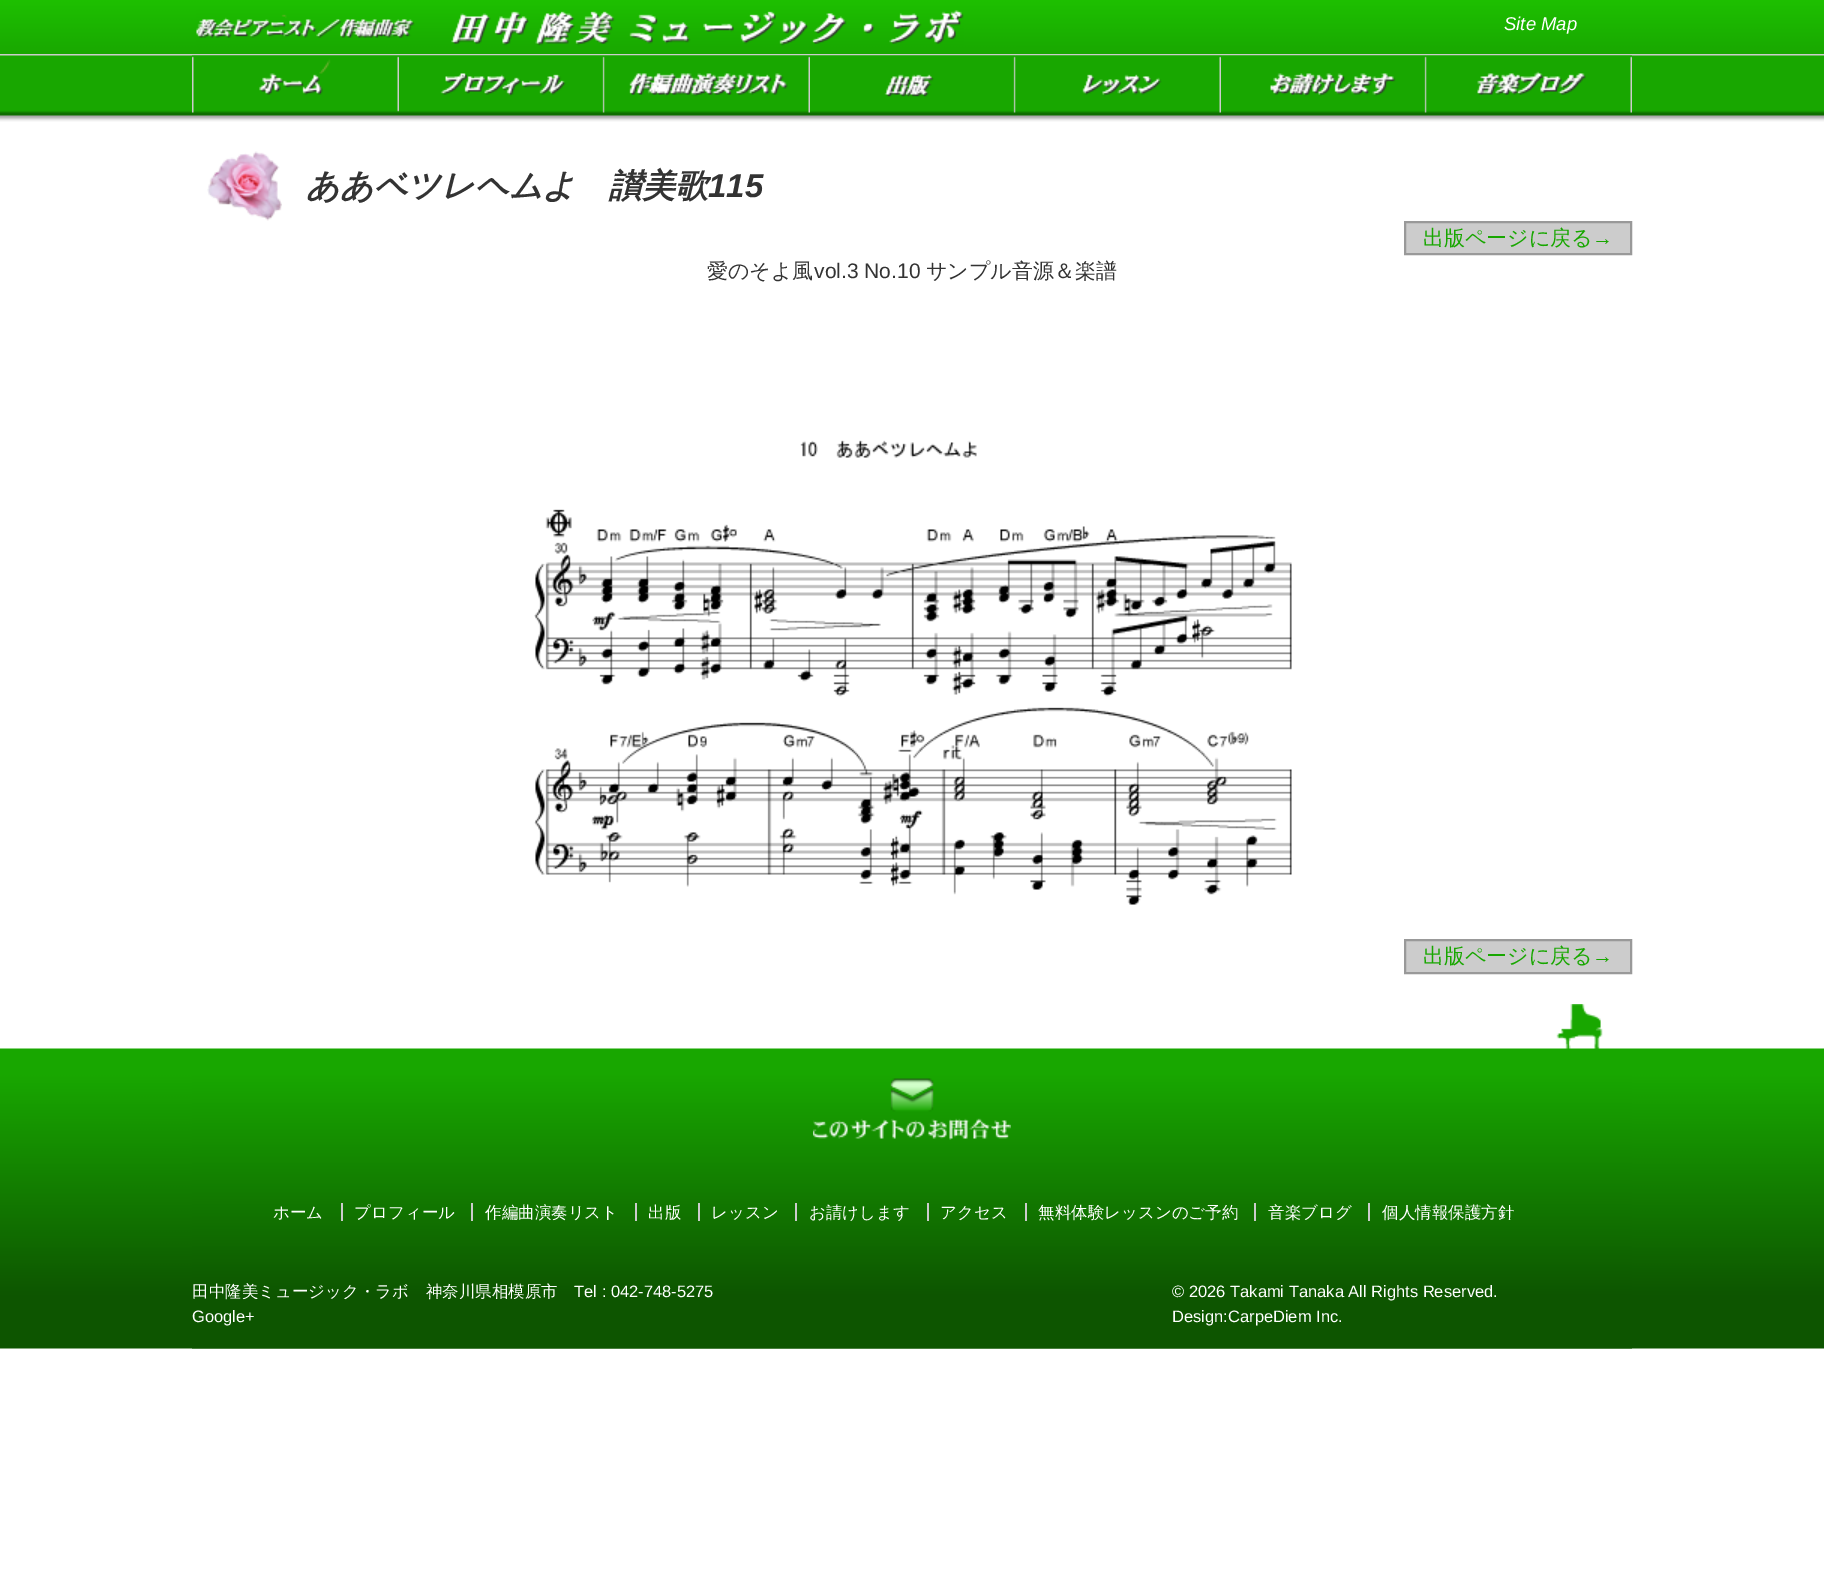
%!PS
<< /PageSize [1824 1575] >> setpagedevice
/rgb { dup -16 bitshift 255 div exch dup -8 bitshift 255 and 255 div exch 255 and 255 div setrgbcolor } def
/font { [ exch dup neg 0 0 3 -1 roll 0 0 ] selectfont } def
/text { moveto show } def
/roundrect { 5 dict begin { /r /h /w /y /x } { exch def } forall
  x r add y moveto x w add y 2 copy h add r arct x w add y h add x 1 index r arct
  x y h add x y r arct x y 2 copy exch w add exch r arct closepath end } def
/picture { 5 dict begin { /h /w /y /x /name } { exch def } forall
  gsave x y translate w h scale
  w h 8 [w 0 0 h 0 0] name (r) file false 3 colorimage grestore end } def
0 1575 translate 1 -1 scale
4 setmiterlimit
/s1 { /LiberationSans-Italic 18.5 font 16#FFFFFF rgb } def
/s2 { /WenQuanYiZenHei-BoldItalic 33 font 16#333333 rgb } def
/s3 { /LiberationSans-BoldItalic 33 font 16#333333 rgb } def
/s4 { /WenQuanYiZenHei-Medium 21 font 16#18A700 rgb } def
/s5 { /LiberationSans-Regular 21 font 16#18A700 rgb } def
/s6 { /WenQuanYiZenHei-Medium 21 font 16#333333 rgb } def
/s7 { /LiberationSans-Regular 21 font 16#333333 rgb } def
/s8 { /WenQuanYiZenHei-Medium 16.5 font 16#FFFFFF rgb } def
/s9 { /LiberationSans-Regular 16.5 font 16#FFFFFF rgb } def
16#FFFFFF rgb
0 0 1824 1575 rectfill
(pic1.raw) 0 0 1824 54 picture
16#CCCCCC rgb
0 54 1824 2 rectfill
(pic2.raw) 196 10 768 36 picture
s1
(Site Map) 1504 30 text
(pic3.raw) 0 55 1824 67 picture
(pic4.raw) 192 55 207 58 picture
(pic5.raw) 399 55 206 58 picture
(pic6.raw) 604 55 206 58 picture
(pic7.raw) 810 55 206 58 picture
(pic8.raw) 1015 55 206 58 picture
(pic9.raw) 1221 55 206 58 picture
(pic10.raw) 1426 55 206 58 picture
(pic13.raw) 0 1048 1824 301 picture
(pic14.raw) 192 1003 1440 346 picture
192 122 1440 882 6 roundrect fill
(pic11.raw) 207 151 75 70 picture
s2
(ああベツレヘムよ　讃美歌) 306 197 text
s3
(115) 708 197 text
16#CCCCCC rgb
1405 222 moveto 1631 222 lineto 1631 254 lineto 1405 254 lineto closepath gsave fill grestore
16#999999 rgb
2 setlinewidth
stroke
s4
(出版ページに戻る) 1423 245 text
s5
(→) 1592 245 text
s6
(愛のそよ風) 707 278 text
s7
(vol.3 No.10) 814 278 text
s6
(サンプル音源＆楽譜) 926 278 text
(pic12.raw) 534 440 758 465 picture
16#CCCCCC rgb
1405 940 moveto 1631 940 lineto 1631 973 lineto 1405 973 lineto closepath gsave fill grestore
16#999999 rgb
stroke
s4
(出版ページに戻る) 1423 963 text
s5
(→) 1592 963 text
(pic15.raw) 813 1078 198 62 picture
s8
(ホーム) 273 1218 text
(プロフィール) 354 1218 text
16#CCCCCC rgb
341 1203 2 18 rectfill
s8
(作編曲演奏リスト) 485 1218 text
16#CCCCCC rgb
471 1203 2 18 rectfill
s8
(出版) 648 1218 text
16#CCCCCC rgb
635 1203 2 18 rectfill
s8
(レッスン) 711 1218 text
16#CCCCCC rgb
698 1203 2 18 rectfill
s8
(お請けします) 809 1218 text
16#CCCCCC rgb
795 1203 2 18 rectfill
s8
(アクセス) 940 1218 text
16#CCCCCC rgb
927 1203 2 18 rectfill
s8
(無料体験レッスンのご予約) 1038 1218 text
16#CCCCCC rgb
1025 1203 2 18 rectfill
s8
(音楽ブログ) 1268 1218 text
16#CCCCCC rgb
1254 1203 2 18 rectfill
s8
(個人情報保護方針) 1382 1218 text
16#CCCCCC rgb
1368 1203 2 18 rectfill
s8
(田中隆美ミュージック・ラボ　神奈川県相模原市) 192 1297 text
s9
(Tel : 042-748-5275) 574 1297 text
(Google+) 192 1322 text
(© 2026 Takami Tanaka All Rights Reserved.) 1172 1297 text
(Design:CarpeDiem Inc.) 1172 1322 text
showpage
